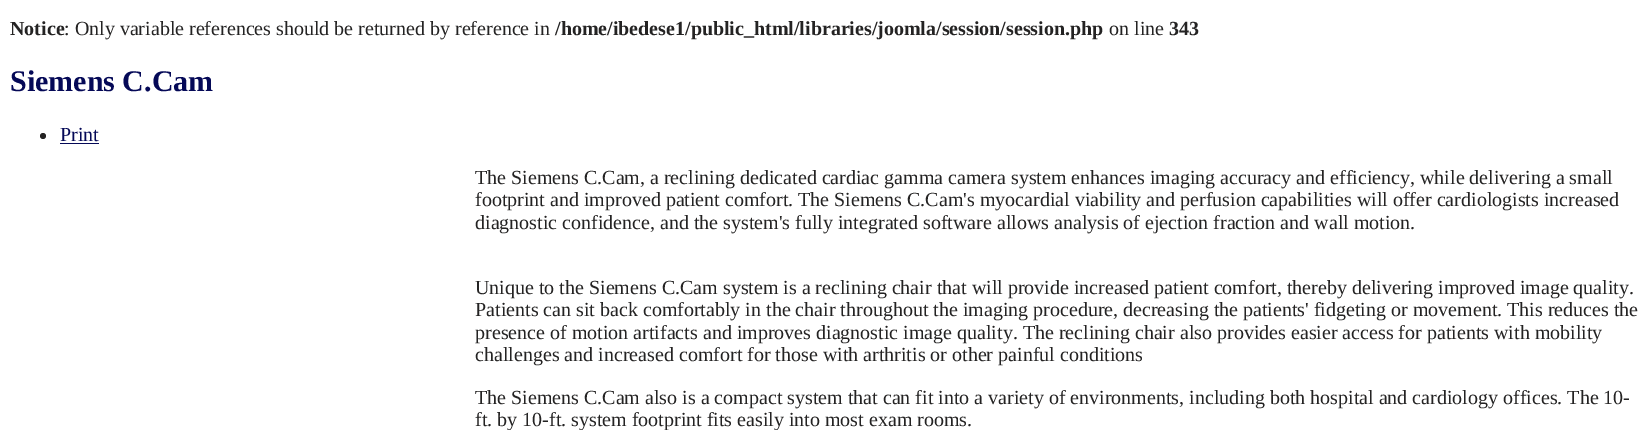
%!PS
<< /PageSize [1648 430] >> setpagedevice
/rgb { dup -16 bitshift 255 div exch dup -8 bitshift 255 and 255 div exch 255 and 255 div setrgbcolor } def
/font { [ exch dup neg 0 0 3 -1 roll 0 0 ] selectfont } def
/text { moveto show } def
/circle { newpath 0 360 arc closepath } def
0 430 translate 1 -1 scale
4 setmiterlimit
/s1 { /LiberationSerif-Bold 20 font 16#242323 rgb } def
/s2 { /LiberationSerif-Regular 20 font 16#242323 rgb } def
/s3 { /LiberationSerif-Bold 30 font 16#050957 rgb } def
/s4 { /LiberationSerif-Regular 20 font 16#050957 rgb } def
16#FFFFFF rgb
0 0 1648 430 rectfill
s1
(Notice) 10 35 text
s2
(: Only variable references should be returned by reference in) 64 35 text
s1
(/home/ibedese1/public_html/libraries/joomla/session/session.php) 555 35 text
s2
(on line) 1109 35 text
s1
(343) 1169 35 text
s3
(Siemens C.Cam) 10 91 text
16#242323 rgb
43 136 3 circle fill
s4
(Print) 60 141 text
60 143 39 1 rectfill
s2
(The Siemens C.Cam, a reclining dedicated cardiac gamma camera system enhances imaging accuracy and efficiency, while delivering a small) 475 184 text
(footprint and improved patient comfort. The Siemens C.Cam's myocardial viability and perfusion capabilities will offer cardiologists increased) 475 206 text
(diagnostic confidence, and the system's fully integrated software allows analysis of ejection fraction and wall motion.) 475 229 text
(Unique to the Siemens C.Cam system is a reclining chair that will provide increased patient comfort, thereby delivering improved image quality.) 475 294 text
(Patients can sit back comfortably in the chair throughout the imaging procedure, decreasing the patients' fidgeting or movement. This reduces the) 475 316 text
(presence of motion artifacts and improves diagnostic image quality. The reclining chair also provides easier access for patients with mobility) 475 339 text
(challenges and increased comfort for those with arthritis or other painful conditions) 475 361 text
(The Siemens C.Cam also is a compact system that can fit into a variety of environments, including both hospital and cardiology offices. The 10-) 475 404 text
(ft. by 10-ft. system footprint fits easily into most exam rooms.) 475 426 text
showpage
